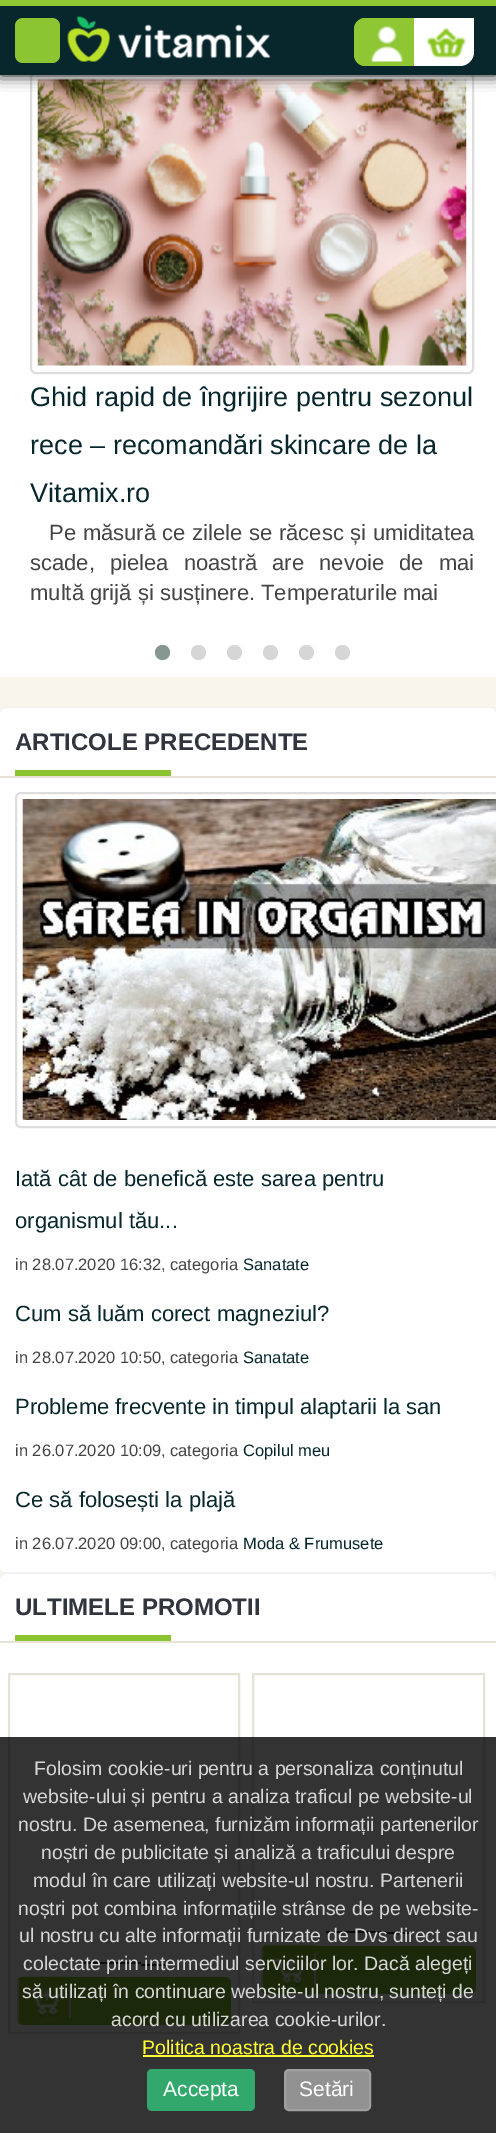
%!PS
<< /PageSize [496 2133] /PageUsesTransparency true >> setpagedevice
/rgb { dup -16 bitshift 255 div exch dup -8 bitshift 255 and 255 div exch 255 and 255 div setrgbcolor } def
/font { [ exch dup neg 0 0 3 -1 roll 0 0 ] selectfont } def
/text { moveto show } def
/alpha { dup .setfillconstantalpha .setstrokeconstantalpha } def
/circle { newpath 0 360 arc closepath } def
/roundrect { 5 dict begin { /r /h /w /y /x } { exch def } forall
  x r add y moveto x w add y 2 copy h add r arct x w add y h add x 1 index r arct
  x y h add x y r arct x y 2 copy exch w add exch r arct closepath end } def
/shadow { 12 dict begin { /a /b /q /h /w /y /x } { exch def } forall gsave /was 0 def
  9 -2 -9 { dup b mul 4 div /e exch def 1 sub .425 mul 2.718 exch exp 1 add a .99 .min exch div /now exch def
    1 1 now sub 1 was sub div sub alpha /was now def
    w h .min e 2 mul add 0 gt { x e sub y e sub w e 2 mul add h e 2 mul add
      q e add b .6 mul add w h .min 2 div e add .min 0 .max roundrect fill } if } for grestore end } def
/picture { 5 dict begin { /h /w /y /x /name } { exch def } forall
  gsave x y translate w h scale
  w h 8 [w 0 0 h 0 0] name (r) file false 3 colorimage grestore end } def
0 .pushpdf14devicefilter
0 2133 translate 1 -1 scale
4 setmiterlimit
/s1 { /LiberationSans-Regular 27 font 16#07272D rgb } def
/s2 { /LiberationSans-Regular 22 font 16#444444 rgb } def
/s3 { /LiberationSans-Bold 24 font 16#31353D rgb } def
/s4 { /LiberationSans-Regular 22 font 16#07272D rgb } def
/s5 { /LiberationSans-Regular 16.5 font 16#444444 rgb } def
/s6 { /LiberationSans-Regular 16.5 font 16#07272D rgb } def
/s7 { /LiberationSans-Regular 19.5 font 16#D6D6D6 rgb } def
/s8 { /LiberationSans-Regular 19.5 font 16#FFFF33 rgb } def
/s9 { /LiberationSans-Regular 21 font 16#FFFFFF rgb } def
16#F8F5EC rgb
0 0 496 2133 rectfill
16#FFFFFF rgb
0 75 496 602 rectfill
16#DDDDDD rgb
2 setlinewidth
31 73 442 300 5 roundrect stroke
(pic4.raw) 37 78 430 288 picture
16#000000 rgb
0 0 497 75 0 7.5 1 shadow
16#07272D rgb
0 6 496 69 rectfill
16#8EC634 rgb
0 0 496 6 rectfill
16#8BC531 rgb
15 18 45 45 8 roundrect fill
(pic1.raw) 67 16 204 46 picture
16#8EC634 rgb
365 18 moveto 414 18 lineto 414 66 lineto 365 66 lineto 359 66 354 61 354 55 curveto 354 29 lineto 354 23 359 18 365 18 curveto closepath fill
(pic2.raw) 371 26 32 36 picture
16#FFFFFF rgb
414 18 moveto 474 18 lineto 474 52 lineto 474 59.5 467.5 66 460 66 curveto 414 66 lineto closepath fill
(pic3.raw) 427 28 39 30 picture
s1
(Ghid rapid de îngrijire pentru sezonul) 30 406 text
(rece – recomandări skincare de la) 30 454 text
(Vitamix.ro) 30 502 text
/LiberationSans-Regular 22 font
16#444444 rgb
49 540 moveto 0.5 0 32 (Pe măsură ce zilele se răcesc și umiditatea) widthshow
30 570 moveto 9 0 32 (scade, pielea noastră are nevoie de mai) widthshow
(multă grijă și susținere. Temperaturile mai) 30 600 text
16#869791 rgb
162.5 652.5 7.5 circle fill
16#D6D6D6 rgb
198.5 652.5 7.5 circle fill
234.5 652.5 7.5 circle fill
270.5 652.5 7.5 circle fill
306.5 652.5 7.5 circle fill
342.5 652.5 7.5 circle fill
16#FFFFFF rgb
0 707 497 865 6 roundrect fill
0.05 alpha
16#000000 rgb
6 708 moveto 490 708 lineto 494 708 496 711 496 714 curveto 496 1570 lineto 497 1569 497 1567 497 1566 curveto 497 713 lineto 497 710 494 707 491 707 curveto 6 707 lineto 3 707 0 710 0 713 curveto 0 714 lineto 0 711 3 708 6 708 curveto closepath fill
1 alpha
16#E6E2D7 rgb
0 776 496 2 rectfill
s3
(ARTICOLE PRECEDENTE) 15 750 text
16#8AC42F rgb
15 770 156 6 rectfill
16#DDDDDD rgb
16 793 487 334 5 roundrect stroke
(pic5.raw) 22 799 474 321 picture
s4
(Iată cât de benefică este sarea pentru) 15 1186 text
(organismul tău...) 15 1228 text
s5
(in 28.07.2020 16:32, categoria) 15 1270 text
s6
(Sanatate) 243 1270 text
s4
(Cum să luăm corect magneziul?) 15 1321 text
s5
(in 28.07.2020 10:50, categoria) 15 1363 text
s6
(Sanatate) 243 1363 text
s4
(Probleme frecvente in timpul alaptarii la san) 15 1414 text
s5
(in 26.07.2020 10:09, categoria) 15 1456 text
s6
(Copilul meu) 243 1456 text
s4
(Ce să folosești la plajă) 15 1507 text
s5
(in 26.07.2020 09:00, categoria) 15 1549 text
s6
(Moda & Frumusete) 243 1549 text
16#FFFFFF rgb
0 1572 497 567 6 roundrect fill
0.05 alpha
16#000000 rgb
6 1574 moveto 490 1574 lineto 494 1574 496 1576 496 1580 curveto 496 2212 lineto 495 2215 lineto 496 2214 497 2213 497 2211 curveto 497 1578 lineto 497 1575 494 1572 491 1572 curveto 6 1572 lineto 3 1572 0 1575 0 1578 curveto 0 1580 lineto 0 1576 3 1574 6 1574 curveto closepath fill
1 alpha
16#E6E2D7 rgb
0 1641 496 2 rectfill
s3
(ULTIMELE PROMOTII) 15 1615 text
16#8AC42F rgb
15 1635 156 6 rectfill
16#E6E2D7 rgb
9 1674 230 359 rectstroke
16#31353D rgb
81 1962 60 2 rectfill
141 1964 26 2 rectfill
16#8EC634 rgb
17 1977 214 48 6 roundrect fill
(pic6.raw) 17 1976 55 49 picture
16#D5D5D5 rgb
17 1980 2 42 rectfill
69 1985 2 33 rectfill
16#E6E2D7 rgb
253 1674 231 328 rectstroke
16#31353D rgb
326 1931 60 2 rectfill
386 1932 25 2 rectfill
16#8EC634 rgb
261 1946 215 48 6 roundrect fill
(pic7.raw) 262 1944 55 43 picture
16#D5D5D5 rgb
261 1949 2 42 rectfill
314 1953 2 33 rectfill
0.8 alpha
16#000000 rgb
0 1737 496 396 rectfill
1 alpha
s7
(Folosim cookie-uri pentru a personaliza conținutul) 34 1775 text
(website-ului și pentru a analiza traficul pe website-ul) 23 1803 text
(nostru. De asemenea, furnizăm informații partenerilor) 18 1831 text
(noștri de publicitate și analiză a traficului despre) 41 1859 text
(modul în care utilizați website-ul nostru. Partenerii) 33 1887 text
(noștri pot combina informațiile strânse de pe website-) 18 1915 text
(ul nostru cu alte informații furnizate de Dvs direct sau) 19 1942 text
(colectate prin intermediul serviciilor lor. Dacă alegeți) 23 1970 text
(să utilizați în continuare website-ul nostru, sunteți de) 22 1998 text
(acord cu utilizarea cookie-urilor.) 111 2026 text
s8
(Politica noastra de cookies) 142 2054 text
143 2055 231 2 rectfill
16#33A86C rgb
147 2069 108 42 5 roundrect fill
s9
(Accepta) 163 2096 text
16#929292 rgb
285 2070 85 40 4 roundrect gsave fill grestore
16#A0A0A0 rgb
stroke
s9
(Setări) 299 2096 text
.poppdf14devicefilter showpage
